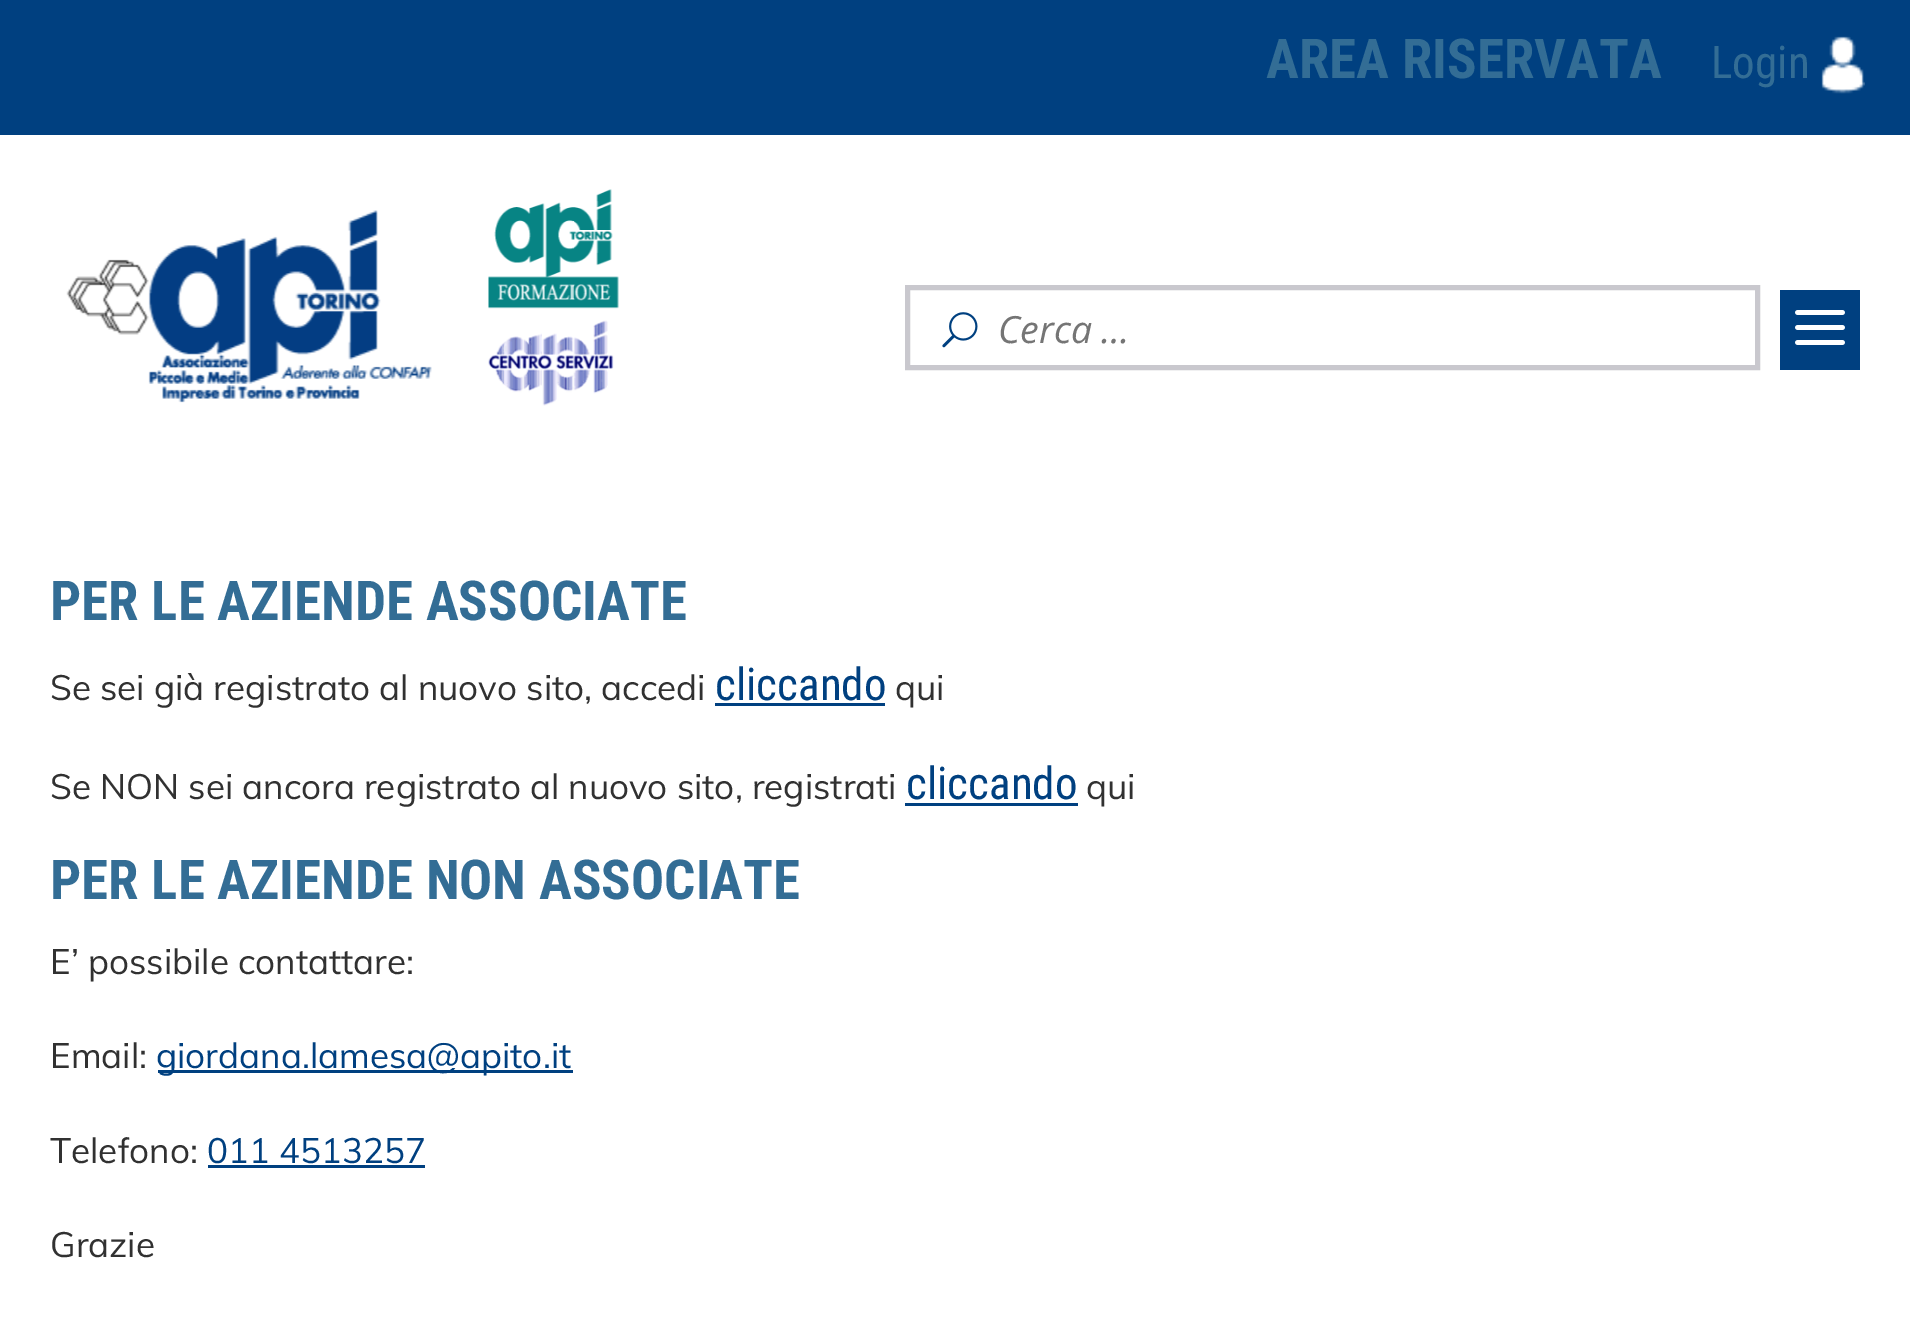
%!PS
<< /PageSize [1910 1321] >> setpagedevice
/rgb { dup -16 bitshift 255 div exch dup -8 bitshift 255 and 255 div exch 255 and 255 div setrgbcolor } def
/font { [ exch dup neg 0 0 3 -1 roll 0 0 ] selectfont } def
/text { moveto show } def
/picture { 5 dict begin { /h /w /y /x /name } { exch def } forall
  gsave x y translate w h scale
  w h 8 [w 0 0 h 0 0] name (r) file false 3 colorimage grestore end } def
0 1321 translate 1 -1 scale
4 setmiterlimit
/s1 { /RobotoCondensed-Bold 55 font 16#336D95 rgb } def
/s2 { /RobotoCondensed-Regular 45 font 16#336D95 rgb } def
/s3 { /OpenSans-Italic 37.5 font 16#757575 rgb } def
/s4 { /Muli-Regular 35 font 16#313131 rgb } def
/s5 { /RobotoCondensed-Regular 45 font 16#004080 rgb } def
/s6 { /Muli-Regular 35 font 16#004080 rgb } def
16#FFFFFF rgb
0 0 1910 1321 rectfill
16#004080 rgb
0 0 1910 135 rectfill
s1
(AREA RISERVATA) 1266 78 text
s2
(Login) 1711 78 text
(pic1.raw) 1821 36 44 58 picture
(pic2.raw) 66 210 366 193 picture
(pic3.raw) 488 189 131 120 picture
(pic4.raw) 488 320 126 86 picture
16#C9C8CE rgb
5 setlinewidth
907.5 287.5 850 80 rectstroke
(pic5.raw) 942 312 36 36 picture
s3
(Cerca …) 998 343 text
16#004080 rgb
1780 290 80 80 rectfill
(pic6.raw) 1795 310 50 35 picture
s1
(PER LE AZIENDE ASSOCIATE) 50 620 text
s4
(Se sei già registrato al nuovo sito, accedi) 50 700 text
s5
(cliccando) 715 700 text
715 703 170 3 rectfill
s4
(qui) 895 700 text
(Se NON sei ancora registrato al nuovo sito, registrati) 50 799 text
s5
(cliccando) 906 799 text
905 803 173 3 rectfill
s4
(qui) 1086 799 text
s1
(PER LE AZIENDE NON ASSOCIATE) 50 899 text
s4
(E’ possibile contattare:) 50 974 text
(Email:) 50 1068 text
16#004080 rgb
158 1070 415 3 rectfill
(giordana.lamesa@apito.it) 156 1068 text
s4
(Telefono:) 50 1163 text
s6
(011 4513257) 207 1163 text
208 1165 217 3 rectfill
s4
(Grazie) 50 1257 text
showpage
